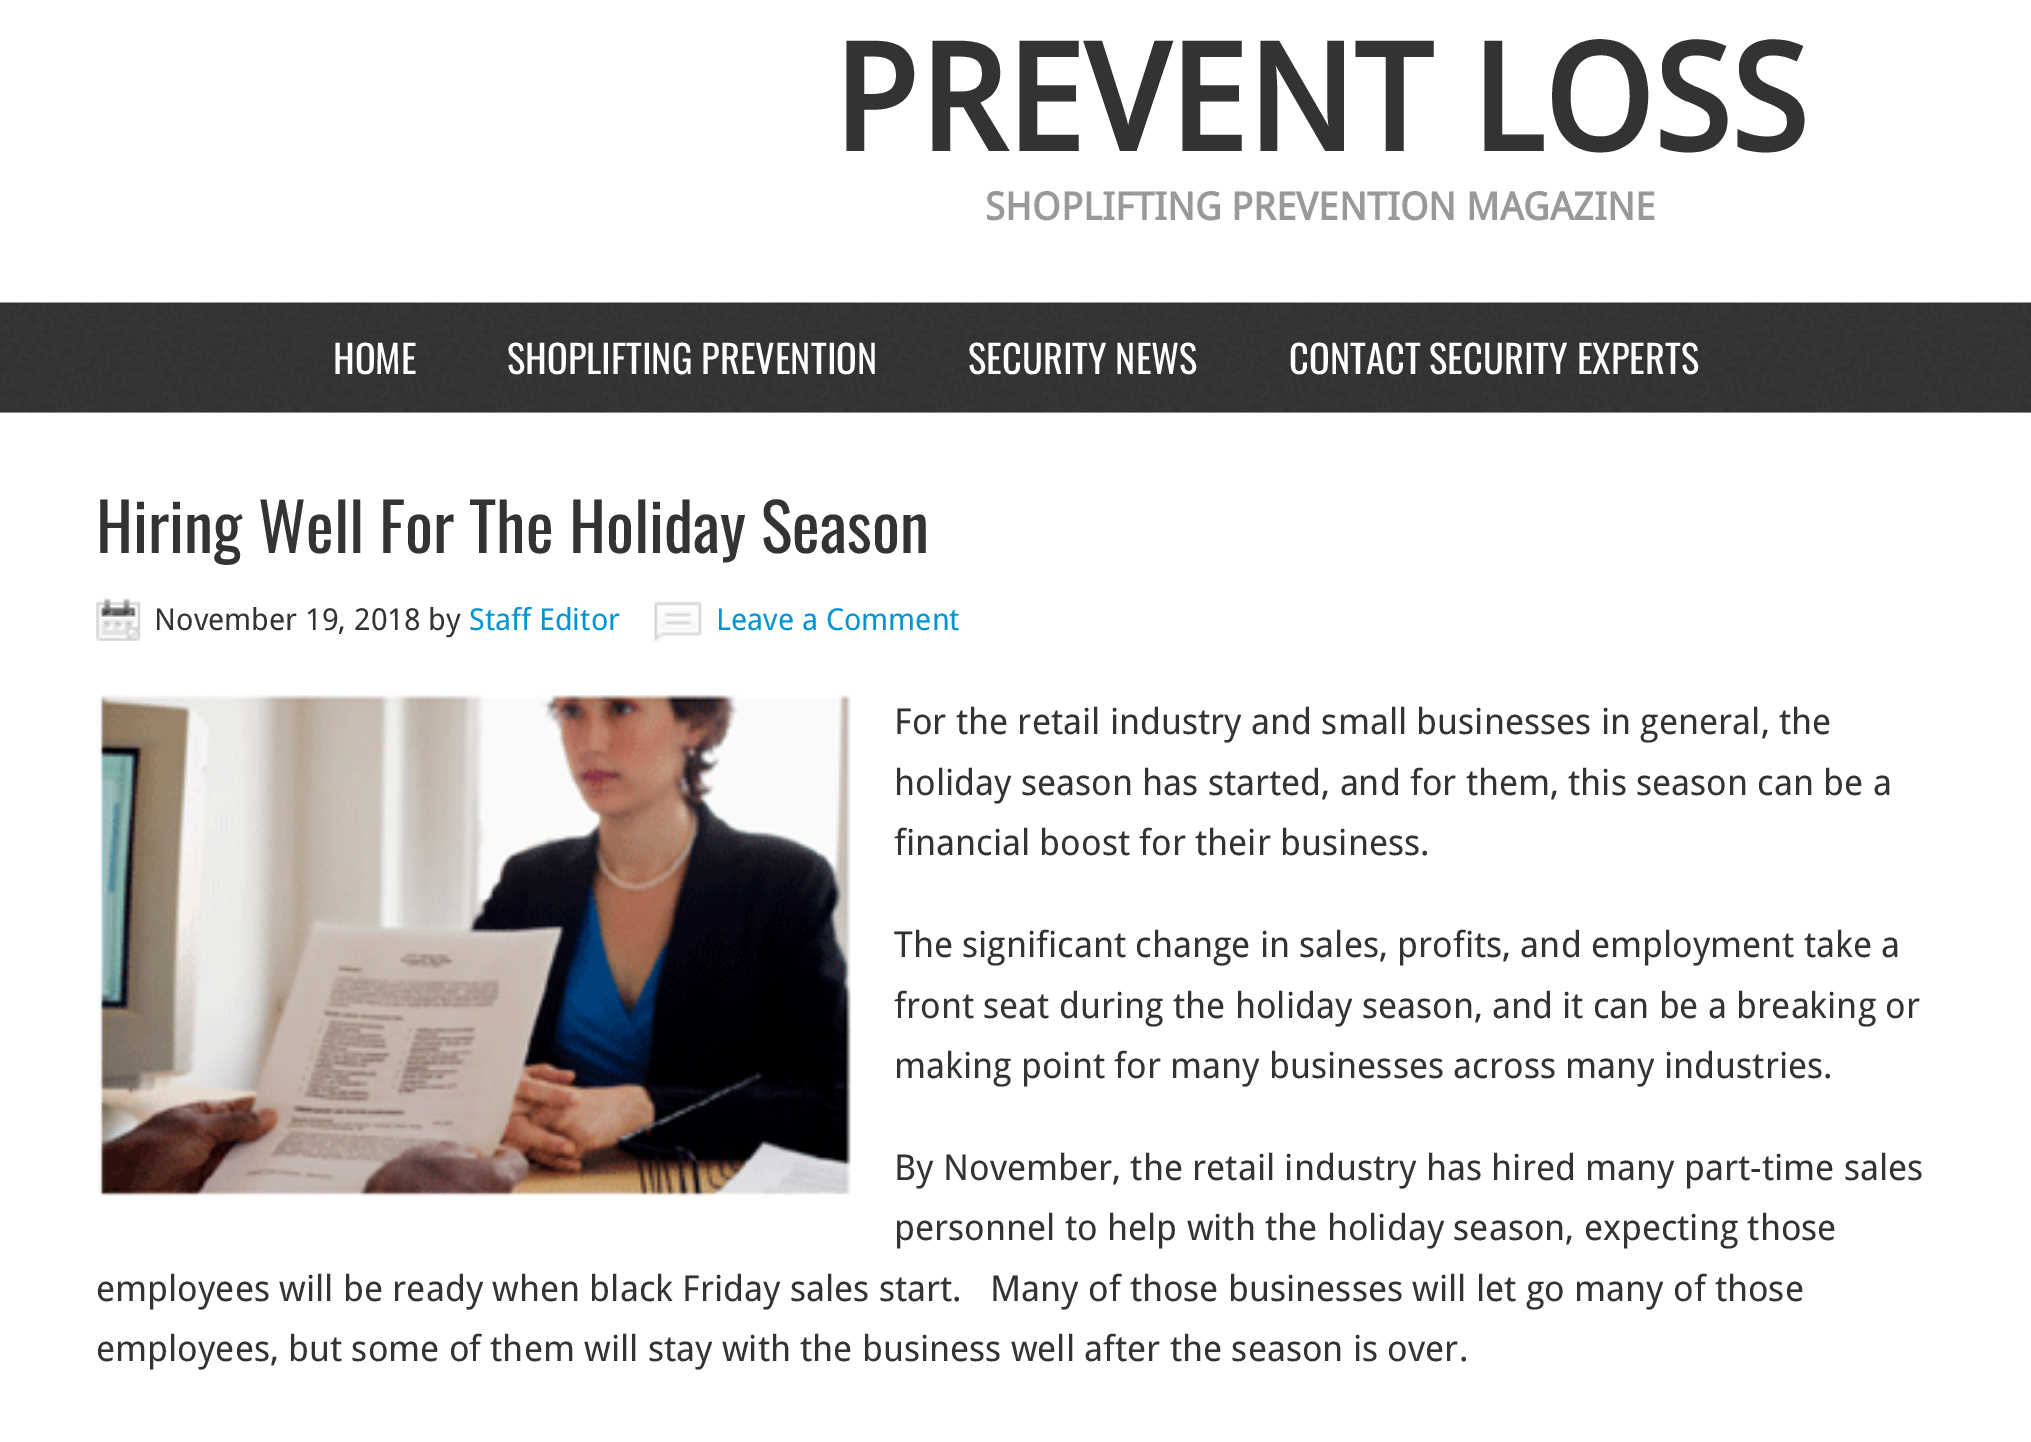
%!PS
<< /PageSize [2031 1442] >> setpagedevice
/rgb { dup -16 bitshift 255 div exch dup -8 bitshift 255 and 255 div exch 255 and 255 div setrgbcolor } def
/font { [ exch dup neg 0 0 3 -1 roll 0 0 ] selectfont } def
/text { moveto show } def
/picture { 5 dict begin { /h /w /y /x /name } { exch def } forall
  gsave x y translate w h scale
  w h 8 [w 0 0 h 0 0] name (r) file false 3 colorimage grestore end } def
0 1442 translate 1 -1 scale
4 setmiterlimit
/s1 { /DroidSans-Bold 148.5 font 16#333333 rgb } def
/s2 { /DroidSans-Bold 38.5 font 16#999999 rgb } def
/s3 { /Oswald-Regular 38.5 font 16#FFFFFF rgb } def
/s4 { /Oswald-Regular 66 font 16#333333 rgb } def
/s5 { /DroidSans-Regular 30.25 font 16#333333 rgb } def
/s6 { /DroidSans-Regular 30.25 font 16#0094D2 rgb } def
/s7 { /DroidSans-Regular 35.75 font 16#333333 rgb } def
16#FFFFFF rgb
0 0 2031 1442 rectfill
(pic1.raw) 0 412 2031 1 picture
s1
(PREVENT LOSS) 832 151 text
s2
(SHOPLIFTING PREVENTION MAGAZINE) 985 220 text
(pic2.raw) 0 302 2031 111 picture
s3
(HOME) 333 374 text
(SHOPLIFTING PREVENTION) 507 374 text
(SECURITY NEWS) 968 374 text
(CONTACT SECURITY EXPERTS) 1289 374 text
s4
(Hiring Well For The Holiday Season) 96 553 text
(pic3.raw) 96 598 45 43 picture
s5
(November 19, 2018 by) 154 630 text
s6
(Staff Editor) 469 630 text
(pic4.raw) 654 601 48 40 picture
(Leave a Comment) 716 630 text
(pic5.raw) 98 695 753 502 picture
s7
(For the retail industry and small businesses in general, the) 894 734 text
(holiday season has started, and for them, this season can be a) 894 795 text
(financial boost for their business.) 894 855 text
(The significant change in sales, profits, and employment take a) 894 957 text
(front seat during the holiday season, and it can be a breaking or) 894 1018 text
(making point for many businesses across many industries.) 894 1078 text
(By November, the retail industry has hired many part-time sales) 894 1180 text
(personnel to help with the holiday season, expecting those) 894 1240 text
(employees will be ready when black Friday sales start.) 96 1301 text
(Many of those businesses will let go many of those) 990 1301 text
(employees, but some of them will stay with the business well after the season is over.) 96 1361 text
showpage
